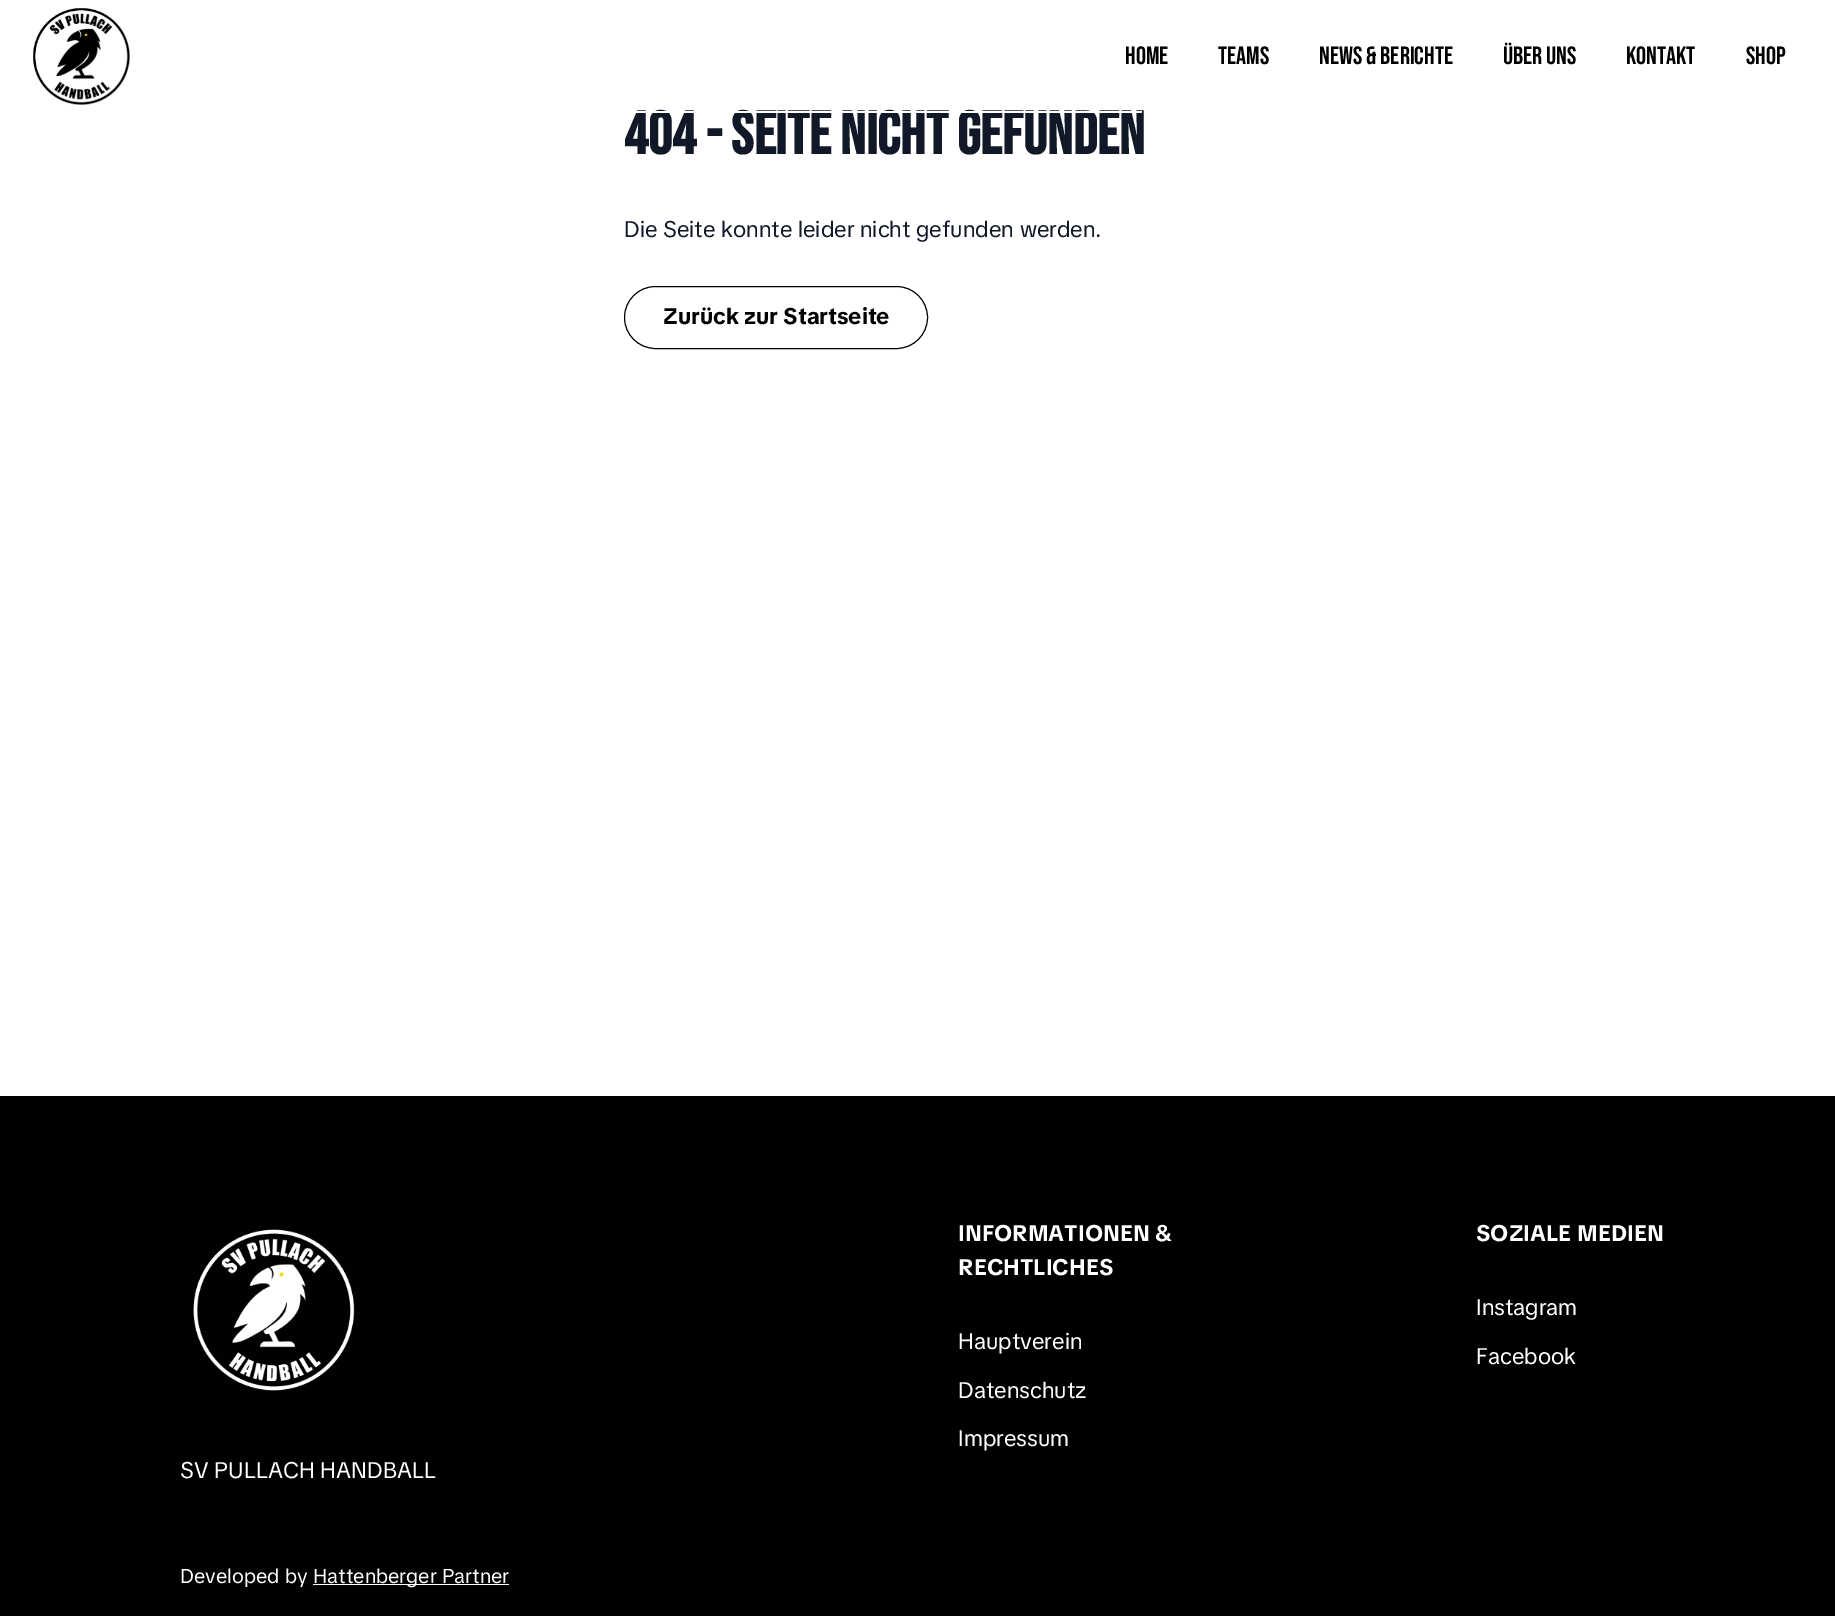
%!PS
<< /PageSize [1835 1616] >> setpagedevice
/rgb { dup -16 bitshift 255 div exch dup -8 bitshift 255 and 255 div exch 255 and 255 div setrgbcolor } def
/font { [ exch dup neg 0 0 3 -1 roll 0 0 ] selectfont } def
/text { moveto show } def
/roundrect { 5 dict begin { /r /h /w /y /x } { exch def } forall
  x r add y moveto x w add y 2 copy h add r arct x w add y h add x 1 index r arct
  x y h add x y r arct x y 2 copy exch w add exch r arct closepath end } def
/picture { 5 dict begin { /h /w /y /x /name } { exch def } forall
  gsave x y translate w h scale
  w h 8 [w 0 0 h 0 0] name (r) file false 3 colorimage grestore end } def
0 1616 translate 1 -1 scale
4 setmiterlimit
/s1 { /BebasNeue-Bold 60 font 16#111827 rgb } def
/s2 { /BebasNeue-Regular 25 font 16#000000 rgb } def
/s3 { /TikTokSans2-Regular 22.5 font 16#111827 rgb } def
/s4 { /TikTokSans-Bold 22.5 font 16#000000 rgb } def
/s5 { /TikTokSans-Bold 22.5 font 16#FFFFFF rgb } def
/s6 { /TikTokSans2-Regular 22.5 font 16#FFFFFF rgb } def
/s7 { /TikTokSans-Regular 20 font 16#FFFFFF rgb } def
16#FFFFFF rgb
0 0 1835 1616 rectfill
s1
(404 - Seite nicht gefunden) 624 154 text
16#FFFFFF rgb
636 111 506 2 rectfill
(pic1.raw) 33 8 97 97 picture
s2
(Home) 1125 64 text
(Teams) 1218 64 text
(News & Berichte) 1319 64 text
(Über uns) 1503 64 text
(Kontakt) 1626 64 text
(Shop) 1746 64 text
s3
(Die Seite konnte leider nicht gefunden werden.) 624 237 text
16#000000 rgb
624.5 286.5 303 62 31 roundrect stroke
s4
(Zurück zur Startseite) 663 324 text
0 1096 1835 520 rectfill
s5
(INFORMATIONEN &) 958 1241 text
(RECHTLICHES) 958 1275 text
s6
(Hauptverein) 958 1349 text
(Datenschutz) 958 1398 text
(Impressum) 958 1446 text
s5
(SOZIALE MEDIEN) 1476 1241 text
s6
(Instagram) 1476 1315 text
(Facebook) 1476 1364 text
(pic2.raw) 193 1229 162 162 picture
(SV PULLACH HANDBALL) 180 1478 text
s7
(Developed by) 180 1583 text
313 1584 196 1 rectfill
(Hattenberger Partner) 313 1583 text
showpage
